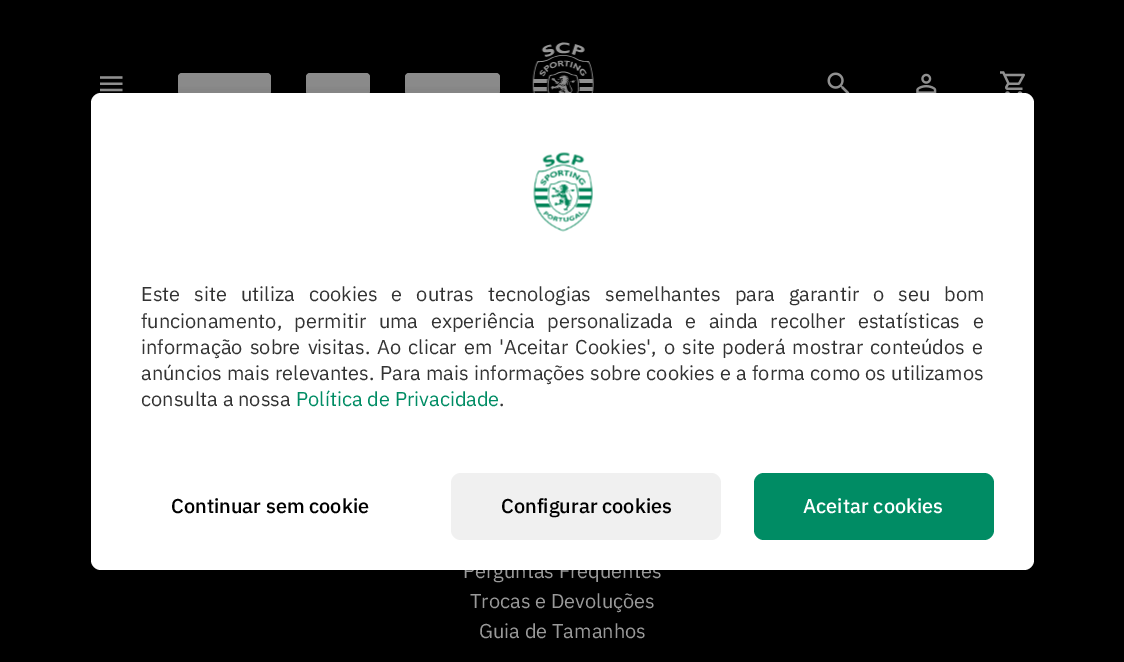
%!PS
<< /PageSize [1124 662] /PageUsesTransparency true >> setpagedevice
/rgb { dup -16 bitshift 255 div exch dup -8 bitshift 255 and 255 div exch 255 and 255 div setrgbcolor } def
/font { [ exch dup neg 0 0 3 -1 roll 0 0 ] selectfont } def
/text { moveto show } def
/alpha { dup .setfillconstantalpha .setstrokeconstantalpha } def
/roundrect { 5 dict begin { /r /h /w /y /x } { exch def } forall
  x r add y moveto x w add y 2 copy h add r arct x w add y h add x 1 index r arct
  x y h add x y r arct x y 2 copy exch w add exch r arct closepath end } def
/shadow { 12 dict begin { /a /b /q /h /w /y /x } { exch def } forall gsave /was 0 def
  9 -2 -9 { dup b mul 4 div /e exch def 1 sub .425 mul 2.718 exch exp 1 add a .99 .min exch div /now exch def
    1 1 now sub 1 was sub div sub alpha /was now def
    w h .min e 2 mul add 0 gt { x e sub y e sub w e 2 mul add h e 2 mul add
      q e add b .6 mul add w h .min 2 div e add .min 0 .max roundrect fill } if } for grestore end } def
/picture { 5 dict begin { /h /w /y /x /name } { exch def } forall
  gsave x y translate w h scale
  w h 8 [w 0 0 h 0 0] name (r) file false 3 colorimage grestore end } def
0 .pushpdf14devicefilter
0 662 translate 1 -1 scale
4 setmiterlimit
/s1 { /IBMPlexSans-Regular 20 font 16#333333 rgb } def
/s2 { /IBMPlexSans-Regular 20 font 16#008C64 rgb } def
/s3 { /IBMPlexSans-Regular 20 font 16#999999 rgb } def
/s4 { /IBMPlexSans-Medium 20 font 16#000000 rgb } def
/s5 { /IBMPlexSans-Medium 20 font 16#FFFFFF rgb } def
16#000000 rgb
0 0 1124 662 rectfill
(pic2.raw) 100 76 23 16 picture
16#939393 rgb
178 73 93 22 4 roundrect fill
306 73 64 22 4 roundrect fill
405 73 95 22 4 roundrect fill
(pic3.raw) 532 42 62 51 picture
(pic4.raw) 827 72 23 21 picture
(pic5.raw) 916 73 21 20 picture
(pic6.raw) 1000 71 25 22 picture
16#000000 rgb
81 94 963 497 20 29 0.12 shadow
88 119 950 485 14 24 0.14 shadow
100 115 925 460 1 9.5 0.2 shadow
16#FFFFFF rgb
101 93 moveto 1024 93 lineto 1029.5 93 1034 97.5 1034 103 curveto 1034 473 lineto 91 473 lineto 91 103 lineto 91 97.5 95.5 93 101 93 curveto closepath fill
(pic1.raw) 533 152 60 80 picture
/IBMPlexSans-Regular 20 font
16#333333 rgb
141 301 moveto 9.25 0 32 (Este site utiliza cookies e outras tecnologias semelhantes para garantir o seu bom) widthshow
141 328 moveto 7.75 0 32 (funcionamento, permitir uma experiência personalizada e ainda recolher estatísticas e) widthshow
141 354 moveto 2.4 0 32 (informação sobre visitas. Ao clicar em 'Aceitar Cookies', o site poderá mostrar conteúdos e) widthshow
141 380 moveto 0.4 0 32 (anúncios mais relevantes. Para mais informações sobre cookies e a forma como os utilizamos) widthshow
(consulta a nossa) 141 406 text
s2
(Política de Privacidade) 296 406 text
s1
(.) 499 406 text
s3
(Perguntas Frequentes) 463 578 text
16#FFFFFF rgb
91 473 moveto 1034 473 lineto 1034 560 lineto 1034 565.5 1029.5 570 1024 570 curveto 101 570 lineto 95.5 570 91 565.5 91 560 curveto closepath fill
s4
(Continuar sem cookie) 171 513 text
16#F0F0F0 rgb
451 473 270 67 10 roundrect fill
s4
(Configurar cookies) 501 513 text
16#008C64 rgb
754 473 240 67 10 roundrect fill
s5
(Aceitar cookies) 803 513 text
s3
(Trocas e Devoluções) 470 608 text
(Guia de Tamanhos) 479 638 text
.poppdf14devicefilter showpage
